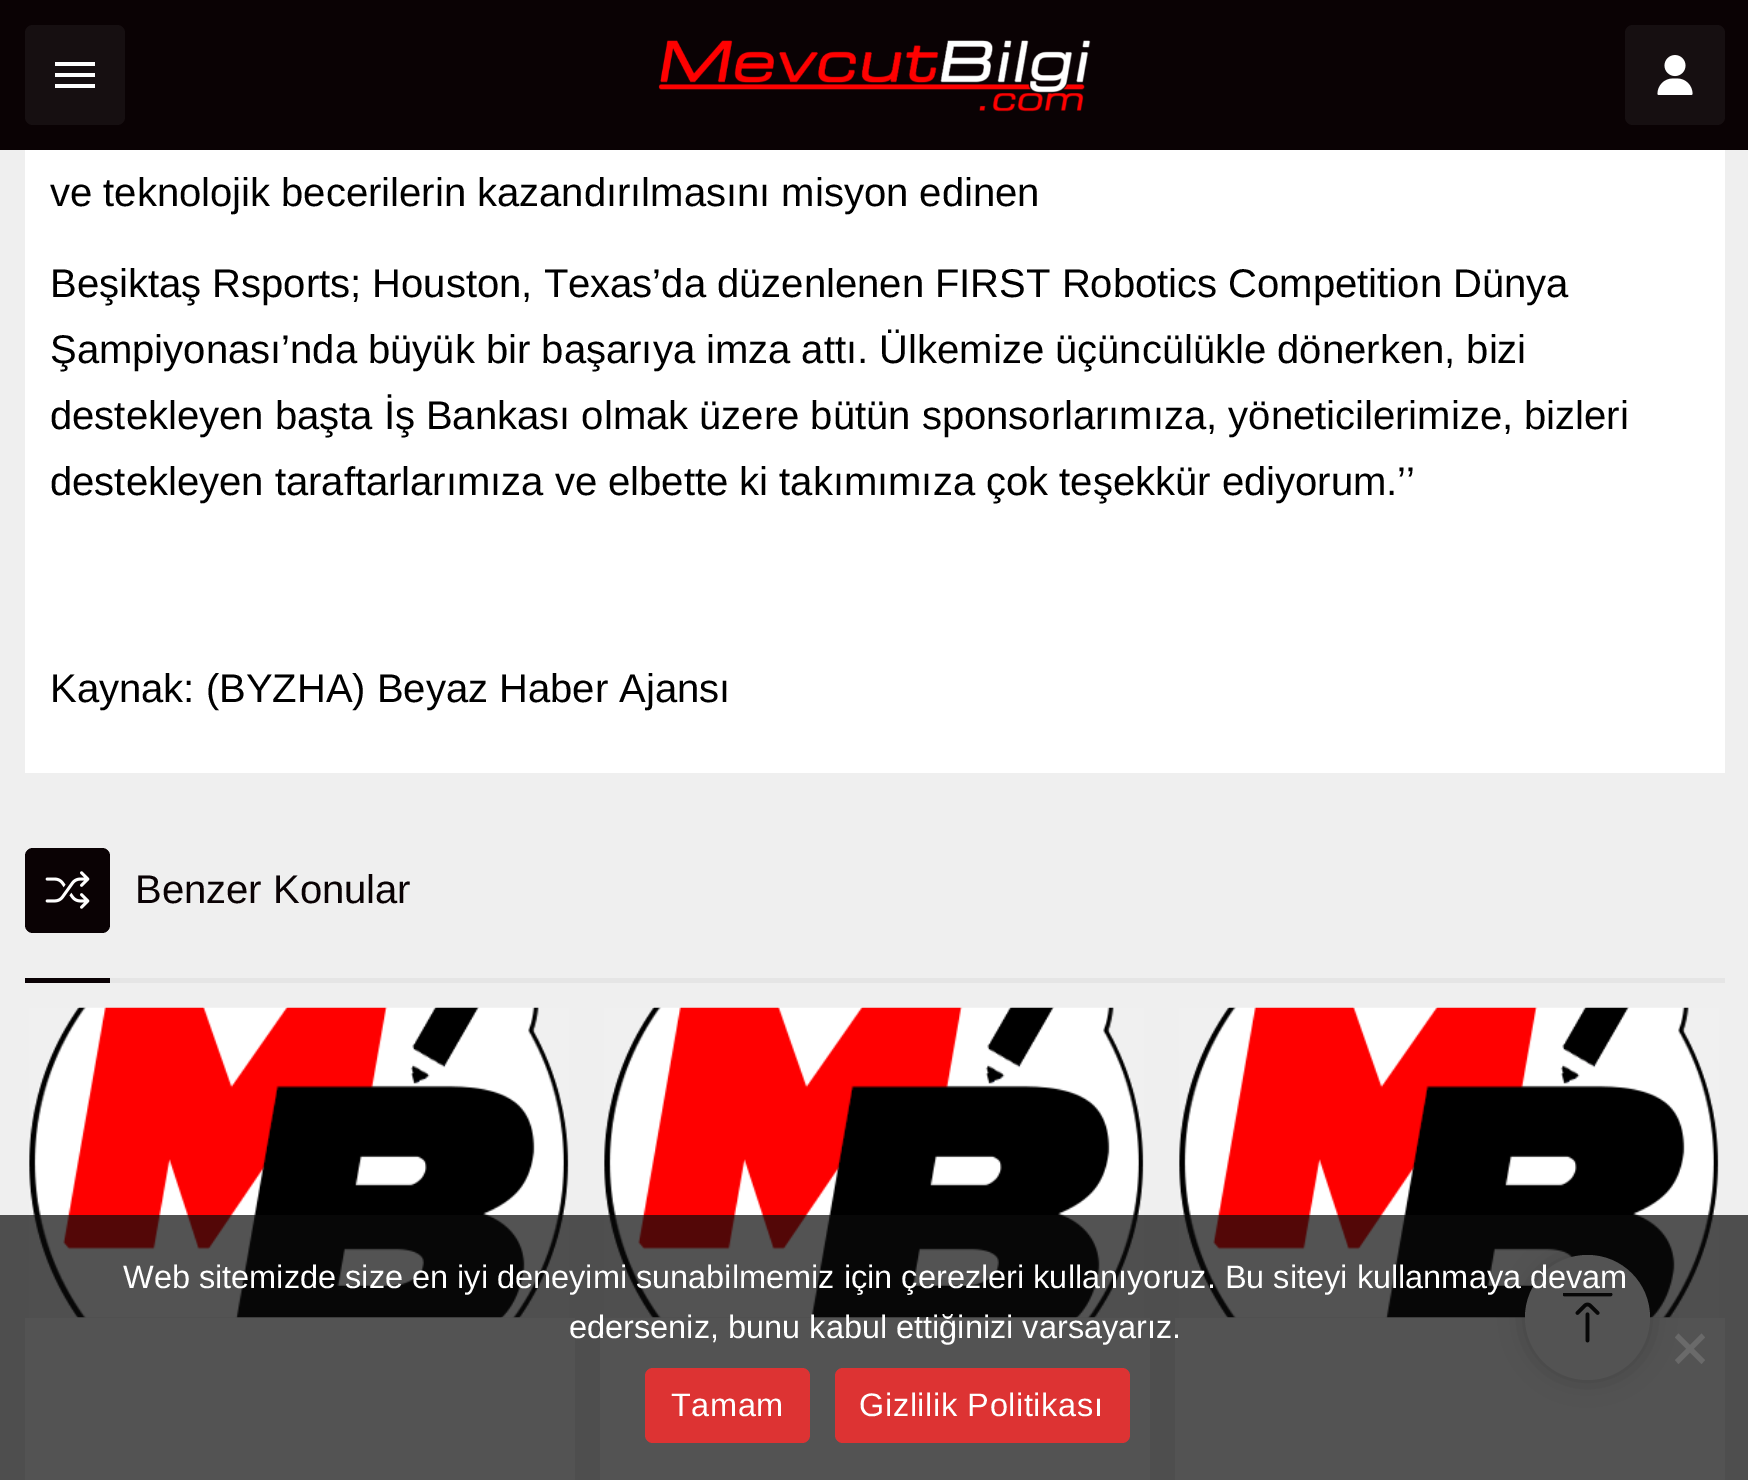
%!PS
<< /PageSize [1748 1480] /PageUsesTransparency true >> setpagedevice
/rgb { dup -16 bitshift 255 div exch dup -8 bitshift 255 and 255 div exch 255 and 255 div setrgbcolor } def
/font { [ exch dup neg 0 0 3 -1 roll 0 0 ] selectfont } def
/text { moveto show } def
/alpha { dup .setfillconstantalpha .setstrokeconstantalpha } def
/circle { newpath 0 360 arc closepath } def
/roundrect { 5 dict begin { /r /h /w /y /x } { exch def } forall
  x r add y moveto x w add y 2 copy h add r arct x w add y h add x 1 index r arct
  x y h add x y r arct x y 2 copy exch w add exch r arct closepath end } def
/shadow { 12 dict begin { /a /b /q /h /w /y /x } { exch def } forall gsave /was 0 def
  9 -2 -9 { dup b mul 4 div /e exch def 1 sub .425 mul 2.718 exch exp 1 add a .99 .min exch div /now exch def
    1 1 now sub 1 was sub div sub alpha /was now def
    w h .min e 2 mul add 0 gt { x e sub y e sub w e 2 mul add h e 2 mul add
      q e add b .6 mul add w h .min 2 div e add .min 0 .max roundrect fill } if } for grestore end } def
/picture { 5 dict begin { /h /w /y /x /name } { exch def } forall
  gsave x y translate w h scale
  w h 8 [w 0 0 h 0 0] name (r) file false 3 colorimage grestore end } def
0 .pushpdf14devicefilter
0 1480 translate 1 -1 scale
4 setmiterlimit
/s1 { /LiberationSans-Regular 40 font 16#000000 rgb } def
/s2 { /LiberationSans-Regular 40 font 16#0A0204 rgb } def
/s3 { /LiberationSans-Regular 32.5 font 16#FFFFFF rgb } def
16#EFEFEF rgb
0 0 1748 1480 rectfill
16#0A0204 rgb
0 0 1748 150 rectfill
16#160F11 rgb
25 25 100 100 8 roundrect fill
16#FFFFFF rgb
55 88 moveto 95 88 lineto 95 84 lineto 55 84 lineto closepath 55 77 moveto 95 77 lineto 95 73 lineto 55 73 lineto closepath 55 62 moveto 55 66 lineto 95 66 lineto 95 62 lineto closepath fill
(pic1.raw) 658 40 433 72 picture
16#160F11 rgb
1625 25 100 100 8 roundrect fill
(pic2.raw) 1657 55 36 40 picture
16#FFFFFF rgb
25 150 1700 623 rectfill
s1
(ve teknolojik becerilerin kazandırılmasını misyon edinen) 50 206 text
(Beşiktaş Rsports; Houston, Texas’da düzenlenen FIRST Robotics Competition Dünya) 50 297 text
(Şampiyonası’nda büyük bir başarıya imza attı. Ülkemize üçüncülükle dönerken, bizi) 50 363 text
(destekleyen başta İş Bankası olmak üzere bütün sponsorlarımıza, yöneticilerimize, bizleri) 50 429 text
(destekleyen taraftarlarımıza ve elbette ki takımımıza çok teşekkür ediyorum.’’) 50 495 text
(Kaynak: \(BYZHA\) Beyaz Haber Ajansı) 50 702 text
16#E5E5E5 rgb
110 978 1615 5 rectfill
16#0A0204 rgb
25 848 85 85 8 roundrect fill
(pic3.raw) 45 871 45 38 picture
(Benzer Konular) 135 903 text
25 978 85 5 rectfill
16#FFFFFF rgb
25 1318 550 162 rectfill
(pic4.raw) 29 1007 540 311 picture
600 1318 550 162 rectfill
(pic5.raw) 604 1007 540 311 picture
1175 1318 550 162 rectfill
(pic6.raw) 1179 1007 540 311 picture
16#000000 rgb
1525 1255 125 125 62.5 12.5 0.2 shadow
16#FFFFFF rgb
1587.5 1317.5 62.5 circle fill
(pic7.raw) 1563 1293 50 50 picture
0.7 alpha
16#0A0A0A rgb
0 1215 1748 265 rectfill
1 alpha
s3
(Web sitemizde size en iyi deneyimi sunabilmemiz için çerezleri kullanıyoruz. Bu siteyi kullanmaya devam) 123 1288 text
(ederseniz, bunu kabul ettiğinizi varsayarız.) 569 1338 text
16#6A6A6A rgb
1701.5 1333.5 moveto 1705 1337.5 lineto 1678.5 1364 lineto 1675 1360 lineto closepath fill
1675 1337.5 moveto 1678.5 1333.5 lineto 1705 1360 lineto 1701.5 1364 lineto closepath fill
16#DD3333 rgb
645 1368 165 75 8 roundrect fill
16#FFFFFF rgb
671 1416 moveto 0.6 0 (Tamam) ashow
16#DD3333 rgb
835 1368 295 75 8 roundrect fill
16#FFFFFF rgb
859 1416 moveto 0.6 0 (Gizlilik Politikası) ashow
.poppdf14devicefilter showpage
